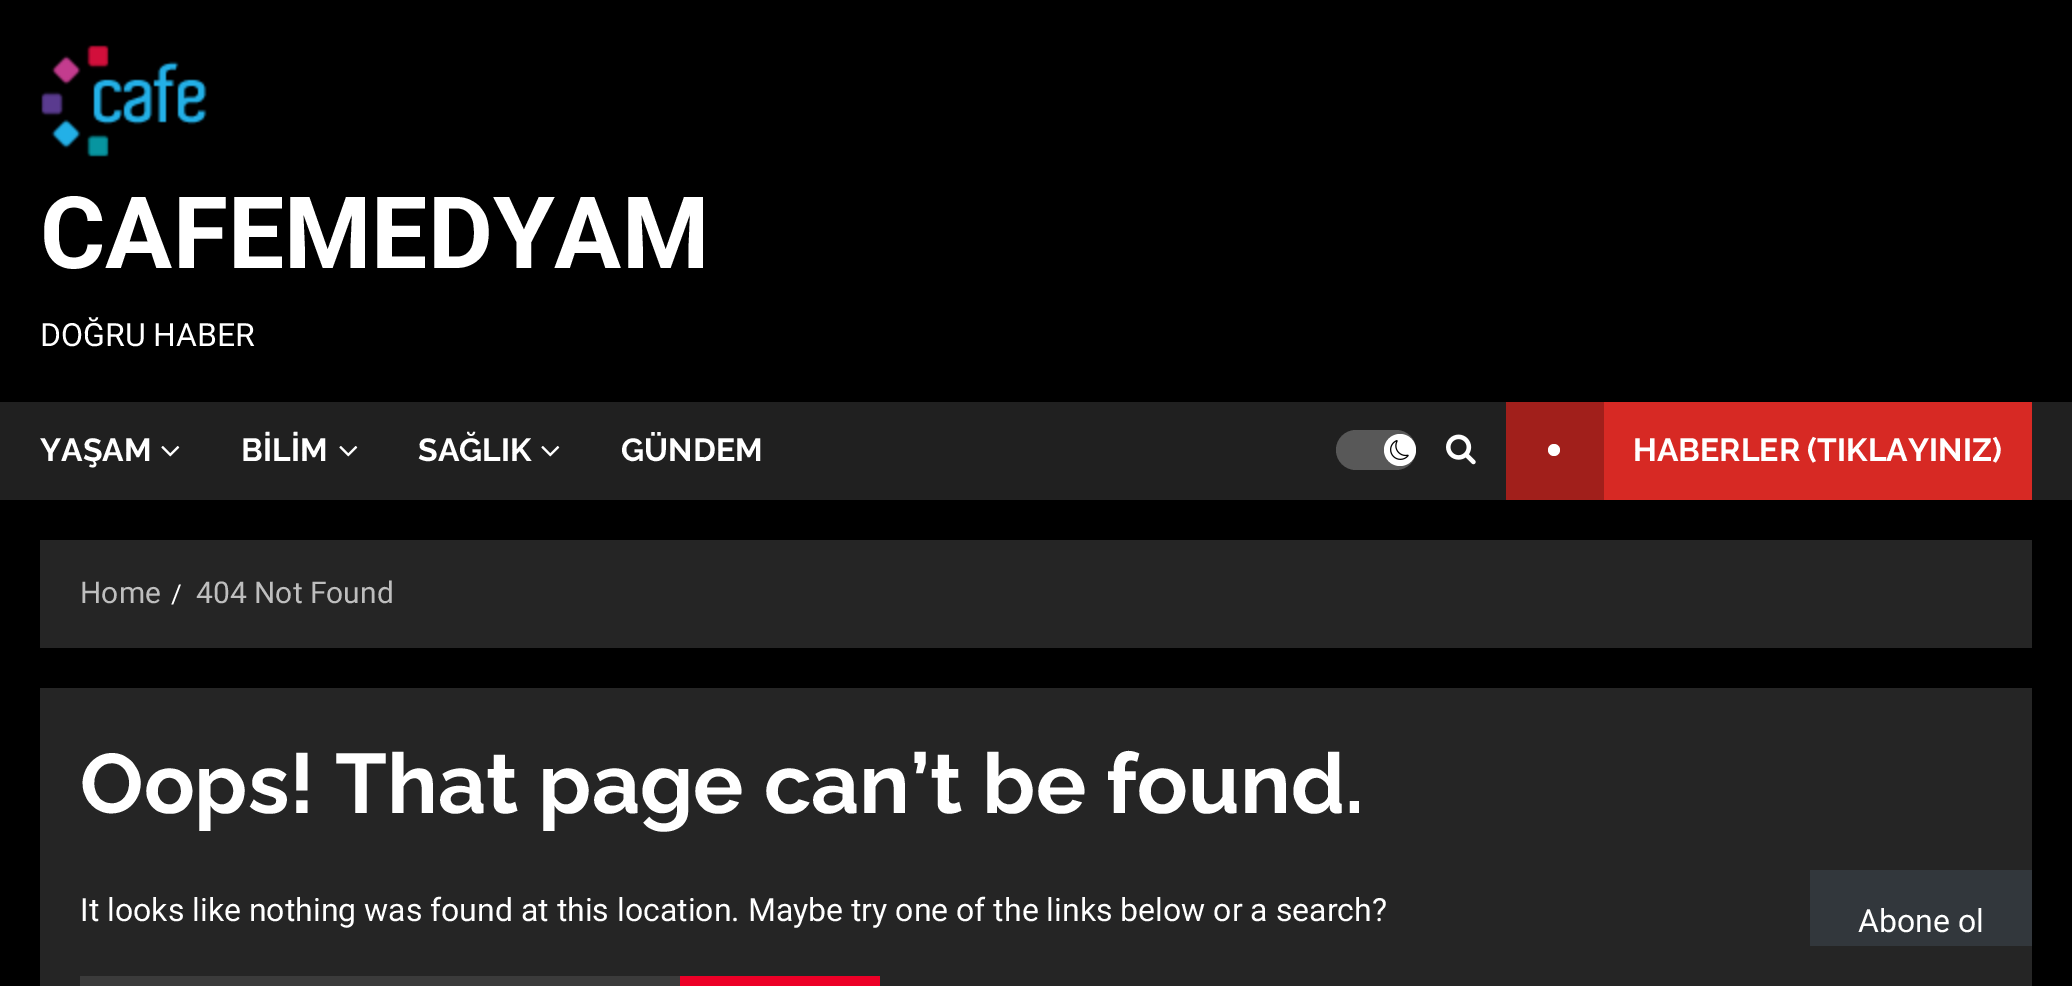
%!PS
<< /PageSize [2072 986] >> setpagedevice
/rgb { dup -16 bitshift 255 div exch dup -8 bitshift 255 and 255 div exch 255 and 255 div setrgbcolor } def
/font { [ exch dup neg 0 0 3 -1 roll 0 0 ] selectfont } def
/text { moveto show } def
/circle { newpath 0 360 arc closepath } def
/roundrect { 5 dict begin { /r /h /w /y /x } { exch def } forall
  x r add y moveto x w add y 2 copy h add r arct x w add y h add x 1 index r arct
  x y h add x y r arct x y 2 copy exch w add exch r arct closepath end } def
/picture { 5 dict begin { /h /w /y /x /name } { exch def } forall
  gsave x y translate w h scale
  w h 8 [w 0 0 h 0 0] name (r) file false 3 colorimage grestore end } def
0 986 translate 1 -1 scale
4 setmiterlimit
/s1 { /Roboto-Bold 100 font 16#FFFFFF rgb } def
/s2 { /Roboto-Regular 32 font 16#FFFFFF rgb } def
/s3 { /Raleway-Bold 32 font 16#FFFFFF rgb } def
/s4 { /Roboto-Regular 30 font 16#BEBEBE rgb } def
/s5 { /Roboto-Regular 26 font 16#FFFFFF rgb } def
/s6 { /Raleway-Bold 84 font 16#FFFFFF rgb } def
16#000000 rgb
0 0 2072 986 rectfill
(pic1.raw) 41 45 166 112 picture
s1
(CAFEMEDYAM) 40 268 text
s2
(DOĞRU HABER) 40 346 text
16#202020 rgb
0 402 2072 98 rectfill
s3
(YAŞAM) 40 461 text
(pic2.raw) 161 446 19 11 picture
(BİLİM) 241 461 text
(pic2.raw) 339 446 19 11 picture
(SAĞLIK) 418 461 text
(pic2.raw) 541 446 19 11 picture
(GÜNDEM) 621 461 text
16#585858 rgb
1336 430 80 40 20 roundrect fill
16#FFFFFF rgb
1400 450 16 circle fill
(pic3.raw) 1390 440 19 20 picture
(pic4.raw) 1446 434 30 31 picture
16#D72924 rgb
1604 402 428 98 rectfill
16#A11F1B rgb
1506 402 98 98 rectfill
16#FFFFFF rgb
1554 450 6 circle fill
(HABERLER \(TIKLAYINIZ\)) 1633 461 text
16#252525 rgb
40 540 1992 108 rectfill
s4
(Home) 80 603 text
s5
(/) 171 603 text
s4
(404 Not Found) 196 603 text
16#252525 rgb
40 688 1992 298 rectfill
s6
(Oops! That page can’t be found.) 80 813 text
s2
(It looks like nothing was found at this location. Maybe try one of the links below or a search?) 80 921 text
16#3B3B3B rgb
80 976 600 10 rectfill
16#ED0027 rgb
680 976 200 10 rectfill
16#32373C rgb
1810 870 222 76 rectfill
s2
(Abone ol) 1858 932 text
showpage
